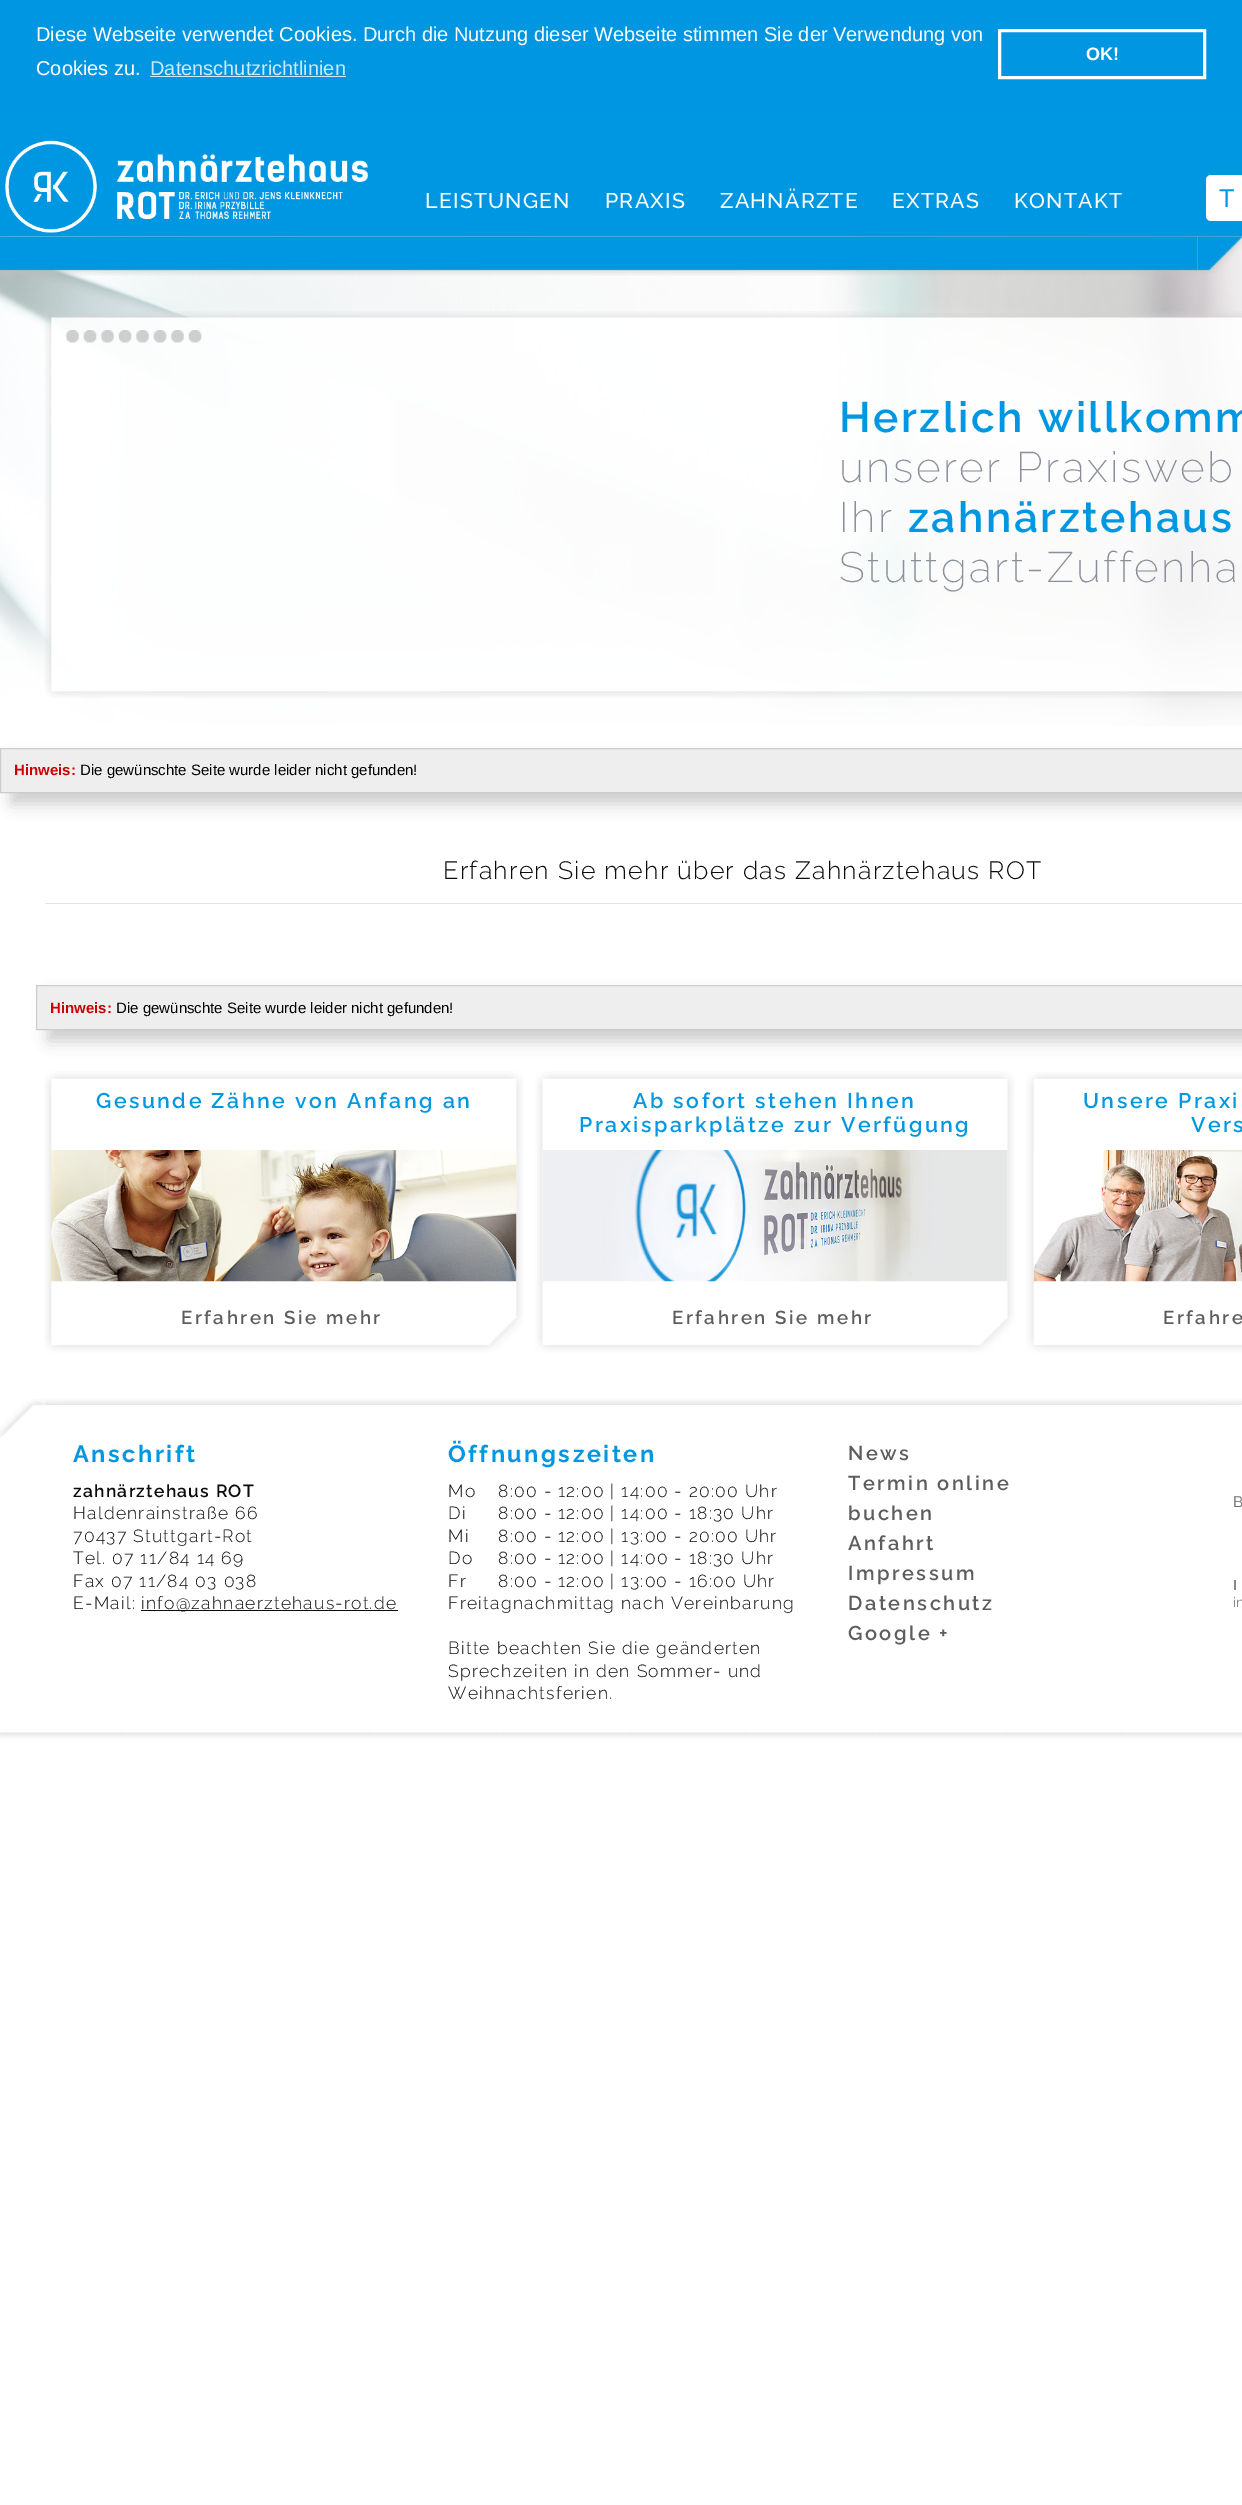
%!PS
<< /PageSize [1242 2505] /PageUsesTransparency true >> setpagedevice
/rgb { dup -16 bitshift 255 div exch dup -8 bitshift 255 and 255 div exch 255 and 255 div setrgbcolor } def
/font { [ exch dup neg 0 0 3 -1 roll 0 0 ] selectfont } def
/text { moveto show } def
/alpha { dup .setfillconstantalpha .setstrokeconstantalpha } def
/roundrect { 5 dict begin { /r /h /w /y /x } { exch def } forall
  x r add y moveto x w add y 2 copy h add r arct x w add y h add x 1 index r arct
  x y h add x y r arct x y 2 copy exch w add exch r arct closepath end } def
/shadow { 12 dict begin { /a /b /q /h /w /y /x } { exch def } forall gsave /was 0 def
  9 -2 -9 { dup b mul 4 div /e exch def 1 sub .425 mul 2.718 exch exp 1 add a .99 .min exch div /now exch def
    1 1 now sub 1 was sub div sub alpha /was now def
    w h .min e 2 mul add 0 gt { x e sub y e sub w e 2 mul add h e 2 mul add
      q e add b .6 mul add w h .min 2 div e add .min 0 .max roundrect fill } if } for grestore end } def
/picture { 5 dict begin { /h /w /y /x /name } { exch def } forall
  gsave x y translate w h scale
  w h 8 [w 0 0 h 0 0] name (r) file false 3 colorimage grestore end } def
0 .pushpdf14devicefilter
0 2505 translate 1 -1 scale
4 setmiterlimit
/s1 { /LiberationSans-Regular 20 font 16#FFFFFF rgb } def
/s2 { /LiberationSans-Regular 20 font 16#CCEAF9 rgb } def
/s3 { /LiberationSans-Bold 18 font 16#FFFFFF rgb } def
/s4 { /LiberationSans-Bold 15 font 16#CC0000 rgb } def
/s5 { /LiberationSans-Regular 15 font 16#000000 rgb } def
/s6 { /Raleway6-Thin 15 font 16#666666 rgb } def
/s7 { /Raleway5-Thin 14 font 16#888888 rgb } def
/s8 { /Raleway6-Thin 14 font 16#888888 rgb } def
16#FFFFFF rgb
0 0 1242 2505 rectfill
(pic1.raw) 0 236 1242 490 picture
16#0096E2 rgb
0 0 1242 108 rectfill
s1
(Diese Webseite verwendet Cookies. Durch die Nutzung dieser Webseite stimmen Sie der Verwendung von) 36 41 text
(Cookies zu.) 36 75 text
s2
(Datenschutzrichtlinien) 150 75 text
150 76 196 1 rectfill
16#FFFFFF rgb
3 setlinewidth
999.5 30.5 205 47 rectstroke
s3
(OK!) 1086 60 text
16#0097E2 rgb
0 108 1242 128 rectfill
(pic2.raw) 5 140 363 93 picture
/Raleway-Thin 21.25 font
16#FFFFFF rgb
425 208 moveto 1.25 0 (LEISTUNGEN) ashow
605 208 moveto 1.25 0 (PRAXIS) ashow
720 208 moveto 1.25 0 (ZAHNÄRZTE) ashow
892 208 moveto 1.25 0 (EXTRAS) ashow
1014 208 moveto 1.25 0 (KONTAKT) ashow
1206 175 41 46 5 roundrect fill
/Raleway-Thin 25 font
16#0097E2 rgb
1219 207 moveto 1.25 0 (T) ashow
(pic3.raw) 0 236 1198 40 picture
(pic4.raw) 1197 236 45 37 picture
(pic5.raw) 45 311 1197 387 picture
(pic6.raw) 66 330 13 13 picture
(pic7.raw) 83 330 14 13 picture
(pic8.raw) 101 330 13 13 picture
(pic9.raw) 118 330 14 13 picture
(pic10.raw) 136 330 13 13 picture
(pic11.raw) 153 330 14 13 picture
(pic12.raw) 171 330 13 13 picture
(pic13.raw) 188 330 14 13 picture
/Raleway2-Thin 42.5 font
839 432 moveto 2.5 0 (Herzlich willkomm) ashow
/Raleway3-Thin 42.5 font
16#8B8E9B rgb
839 482 moveto 2.5 0 (unserer Praxisweb) ashow
839 532 moveto 2.5 0 (Ihr) ashow
/Raleway2-Thin 42.5 font
16#0097E2 rgb
908 532 moveto 2.5 0 (zahnärztehaus) ashow
/Raleway3-Thin 42.5 font
16#8B8E9B rgb
839 582 moveto 2.5 0 (Stuttgart-Zuffenha) ashow
16#CCCCCC rgb
11 759 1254 45 0 7.5 1 shadow
16#EEEEEE rgb
0.5 748.5 moveto 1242.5 748.5 lineto 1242.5 792.5 lineto 0.5 792.5 lineto closepath gsave fill grestore
16#CCCCCC rgb
1 setlinewidth
stroke
s4
(Hinweis:) 14 775 text
s5
(Die gewünschte Seite wurde leider nicht gefunden!) 80 775 text
16#E2E2E2 rgb
45 903 1197 1 rectfill
/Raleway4-Thin 25 font
16#0B0B0B rgb
443 879 moveto 1.25 0 (Erfahren Sie mehr über das Zahnärztehaus ROT) ashow
16#CCCCCC rgb
48 996 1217 45 0 7.5 1 shadow
16#EEEEEE rgb
36.5 985.5 moveto 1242.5 985.5 lineto 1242.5 1029.5 lineto 36.5 1029.5 lineto closepath gsave fill grestore
16#CCCCCC rgb
stroke
s4
(Hinweis:) 50 1013 text
s5
(Die gewünschte Seite wurde leider nicht gefunden!) 116 1013 text
(pic14.raw) 44 1071 480 282 picture
/Raleway2-Thin 21.25 font
16#0097E2 rgb
96 1108 moveto 2.5 0 (Gesunde Zähne von Anfang an) ashow
(pic15.raw) 51 1150 466 132 picture
/Raleway2-Thin 18.75 font
16#5D5D5D rgb
181 1324 moveto 2.5 0 (Erfahren Sie mehr) ashow
(pic16.raw) 535 1071 480 282 picture
/Raleway2-Thin 21.25 font
16#0097E2 rgb
633 1108 moveto 2.5 0 (Ab sofort stehen Ihnen) ashow
579 1132 moveto 2.5 0 (Praxisparkplätze zur Verfügung) ashow
(pic17.raw) 543 1150 465 132 picture
/Raleway2-Thin 18.75 font
16#5D5D5D rgb
672 1324 moveto 2.5 0 (Erfahren Sie mehr) ashow
(pic18.raw) 1026 1072 216 281 picture
/Raleway2-Thin 21.25 font
16#0097E2 rgb
1083 1108 moveto 2.5 0 (Unsere Praxi) ashow
1191 1132 moveto 2.5 0 (Vers) ashow
(pic19.raw) 1033 1150 209 132 picture
/Raleway2-Thin 18.75 font
16#5D5D5D rgb
1163 1324 moveto 2.5 0 (Erfahre) ashow
(pic20.raw) 0 1399 45 39 picture
(pic21.raw) 45 1398 1197 7 picture
/Raleway5-Thin 23.5 font
16#0097E2 rgb
73 1462 moveto 2.5 0 (Anschrift) ashow
/Raleway2-Thin 17.5 font
16#0B0B0B rgb
73 1497 moveto 1.25 0 (zahnärztehaus ROT) ashow
/Raleway4-Thin 17.5 font
73 1519 moveto 1.25 0 (Haldenrainstraße 66) ashow
73 1542 moveto 1.25 0 (70437 Stuttgart-Rot) ashow
73 1564 moveto 1.25 0 (Tel. 07 11/84 14 69) ashow
73 1587 moveto 1.25 0 (Fax 07 11/84 03 038) ashow
73 1609 moveto 1.25 0 (E-Mail:) ashow
141 1610 257 1 rectfill
141 1609 moveto 1.25 0 (info@zahnaerztehaus-rot.de) ashow
/Raleway5-Thin 23.5 font
16#0097E2 rgb
448 1462 moveto 2.5 0 (Öffnungszeiten) ashow
/Raleway4-Thin 17.5 font
16#0B0B0B rgb
448 1497 moveto 1.25 0 (Mo) ashow
498 1497 moveto 1.25 0 (8:00 - 12:00 | 14:00 - 20:00 Uhr) ashow
448 1519 moveto 1.25 0 (Di) ashow
498 1519 moveto 1.25 0 (8:00 - 12:00 | 14:00 - 18:30 Uhr) ashow
448 1542 moveto 1.25 0 (Mi) ashow
498 1542 moveto 1.25 0 (8:00 - 12:00 | 13:00 - 20:00 Uhr) ashow
448 1564 moveto 1.25 0 (Do) ashow
498 1564 moveto 1.25 0 (8:00 - 12:00 | 14:00 - 18:30 Uhr) ashow
448 1587 moveto 1.25 0 (Fr) ashow
498 1587 moveto 1.25 0 (8:00 - 12:00 | 13:00 - 16:00 Uhr) ashow
448 1609 moveto 1.25 0 (Freitagnachmittag nach Vereinbarung) ashow
448 1654 moveto 1.25 0 (Bitte beachten Sie die geänderten) ashow
448 1677 moveto 1.25 0 (Sprechzeiten in den Sommer- und) ashow
448 1699 moveto 1.25 0 (Weihnachtsferien.) ashow
/Raleway2-Thin 20 font
16#5D5D5D rgb
848 1460 moveto 2.5 0 (News) ashow
848 1490 moveto 2.5 0 (Termin online) ashow
848 1520 moveto 2.5 0 (buchen) ashow
848 1550 moveto 2.5 0 (Anfahrt) ashow
848 1580 moveto 2.5 0 (Impressum) ashow
848 1610 moveto 2.5 0 (Datenschutz) ashow
848 1640 moveto 2.5 0 (Google +) ashow
s6
(B) 1233 1507 text
s7
(I) 1233 1590 text
s8
(in) 1233 1607 text
(pic22.raw) 0 1732 1242 7 picture
.poppdf14devicefilter showpage
